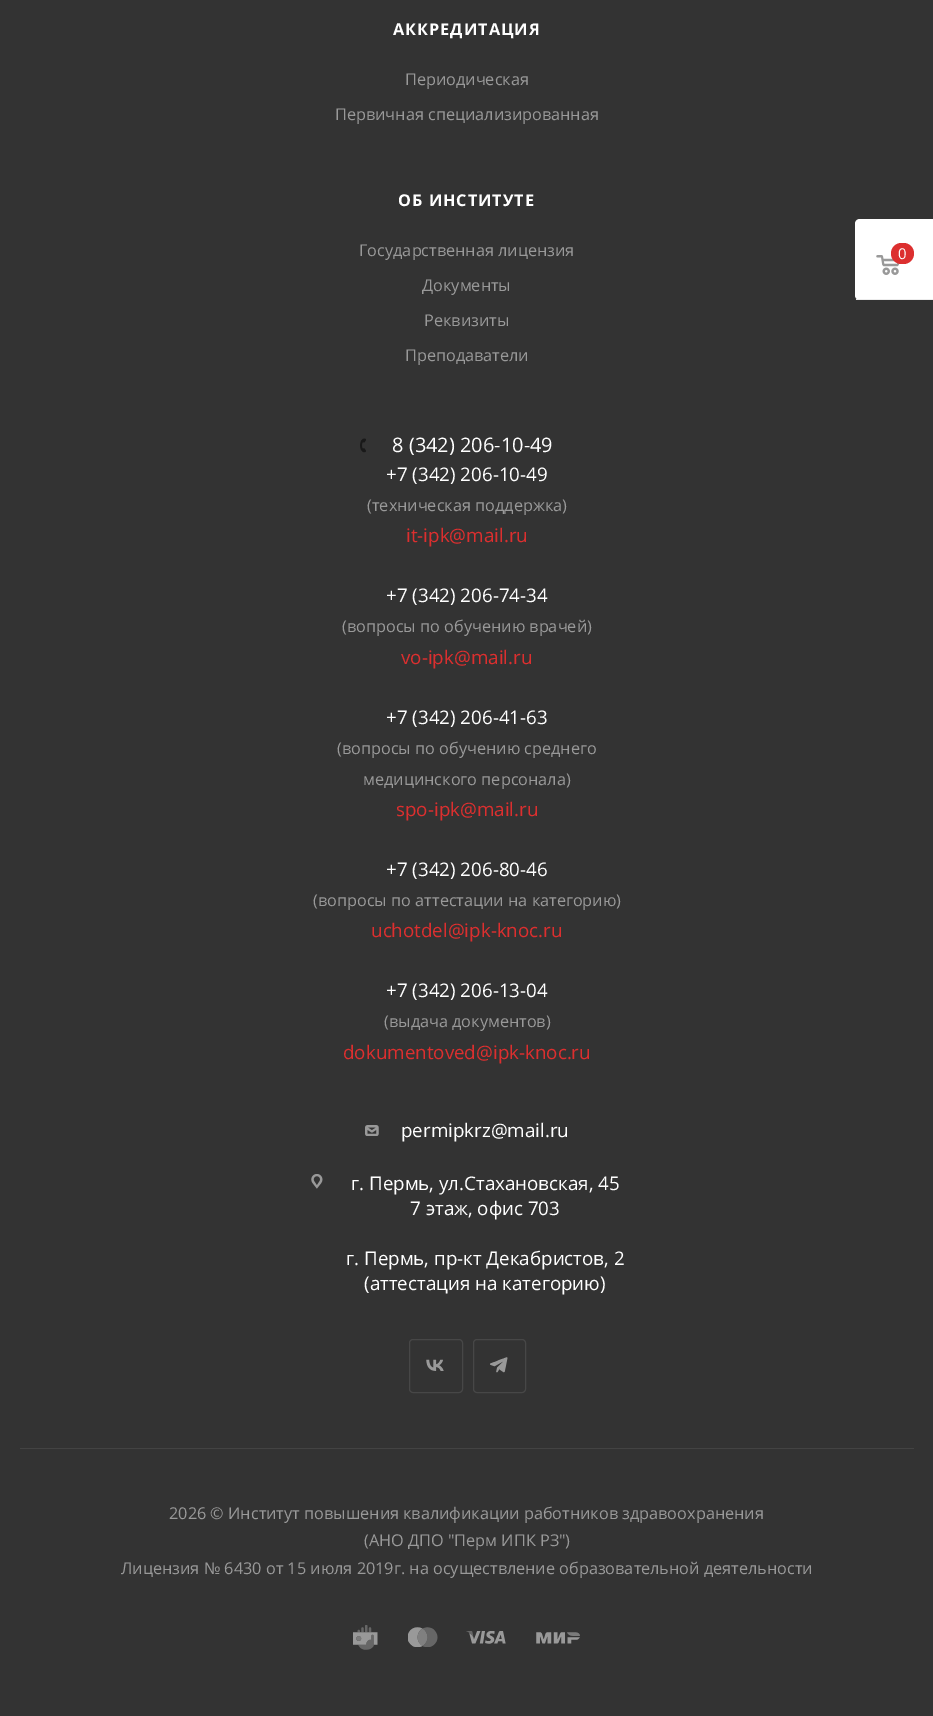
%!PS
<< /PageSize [933 1716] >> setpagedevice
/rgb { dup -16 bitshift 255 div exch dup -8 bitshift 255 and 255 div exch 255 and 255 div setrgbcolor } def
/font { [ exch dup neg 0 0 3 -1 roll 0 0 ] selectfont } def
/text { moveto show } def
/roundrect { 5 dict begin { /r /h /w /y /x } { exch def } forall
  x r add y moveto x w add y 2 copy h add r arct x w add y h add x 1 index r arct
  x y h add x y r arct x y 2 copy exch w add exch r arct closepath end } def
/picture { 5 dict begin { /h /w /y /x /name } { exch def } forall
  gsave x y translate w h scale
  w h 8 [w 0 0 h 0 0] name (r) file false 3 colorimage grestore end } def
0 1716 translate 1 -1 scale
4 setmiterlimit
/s1 { /OpenSans-Regular 16.25 font 16#999999 rgb } def
/s2 { /OpenSans-Regular 20 font 16#FFFFFF rgb } def
/s3 { /OpenSans-Regular 18.75 font 16#FFFFFF rgb } def
/s4 { /OpenSans-Regular 18.75 font 16#DC2F2F rgb } def
/s5 { /OpenSans-Regular 15 font 16#FFFFFF rgb } def
16#333333 rgb
0 0 933 1716 rectfill
/OpenSans-Bold 16.25 font
16#FFFFFF rgb
393 35 moveto 1 0 (АККРЕДИТАЦИЯ) ashow
s1
(Периодическая) 405 85 text
(Первичная специализированная) 335 120 text
/OpenSans-Bold 16.25 font
16#FFFFFF rgb
398 206 moveto 1 0 (ОБ ИНСТИТУТЕ) ashow
s1
(Государственная лицензия) 359 256 text
(Документы) 422 291 text
(Реквизиты) 424 326 text
(Преподаватели) 405 361 text
(pic1.raw) 360 438 6 15 picture
gsave
356 435 213 20 rectclip
s2
(8 \(342\) 206-10-49) 392 452 text
grestore
s3
(+7 \(342\) 206-10-49) 386 481 text
s1
(\(техническая поддержка\)) 367 511 text
s4
(it-ipk@mail.ru) 406 542 text
s3
(+7 \(342\) 206-74-34) 386 602 text
s1
(\(вопросы по обучению врачей\)) 342 632 text
s4
(vo-ipk@mail.ru) 401 664 text
s3
(+7 \(342\) 206-41-63) 386 724 text
s1
(\(вопросы по обучению среднего) 337 754 text
(медицинского персонала\)) 363 785 text
s4
(spo-ipk@mail.ru) 396 816 text
s3
(+7 \(342\) 206-80-46) 386 876 text
s1
(\(вопросы по аттестации на категорию\)) 313 906 text
s4
(uchotdel@ipk-knoc.ru) 371 937 text
s3
(+7 \(342\) 206-13-04) 386 997 text
s1
(\(выдача документов\)) 384 1027 text
s4
(dokumentoved@ipk-knoc.ru) 343 1059 text
(pic2.raw) 365 1125 14 11 picture
s3
(permipkrz@mail.ru) 401 1137 text
(pic3.raw) 311 1174 12 15 picture
(г. Пермь, ул.Стахановская, 45) 351 1190 text
(7 этаж, офис 703) 410 1215 text
(г. Пермь, пр-кт Декабристов, 2) 346 1265 text
(\(аттестация на категорию\)) 364 1290 text
(pic4.raw) 426 1359 18 12 picture
16#474747 rgb
409.5 1339.5 53 53 3.5 roundrect stroke
(pic5.raw) 490 1357 18 16 picture
473.5 1339.5 52 53 3.5 roundrect stroke
16#434343 rgb
20 1448 894 1 rectfill
s1
(2026 © Институт повышения квалификации работников здравоохранения) 169 1519 text
(\(АНО ДПО "Перм ИПК РЗ"\)) 364 1546 text
(Лицензия № 6430 от 15 июля 2019г. на осуществление образовательной деятельности) 121 1574 text
(pic6.raw) 353 1625 25 25 picture
(pic7.raw) 408 1627 30 20 picture
(pic8.raw) 466 1631 40 13 picture
(pic9.raw) 536 1632 44 12 picture
16#FFFFFF rgb
860 219 moveto 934 219 lineto 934 300 lineto 860 300 lineto 857 300 855 298 855 295 curveto 855 224 lineto 855 221 857 219 860 219 curveto closepath fill
gsave
860 219 moveto 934 219 lineto 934 300 lineto 860 300 lineto 857 300 855 298 855 295 curveto 855 224 lineto 855 221 857 219 860 219 curveto closepath clip newpath
16#ECECEC rgb
855 299 78 1 rectfill
grestore
(pic10.raw) 876 255 23 20 picture
16#DC2F2F rgb
891 243 23 21 10.5 roundrect fill
899 243 7 21 rectfill
s5
(0) 898 259 text
showpage
